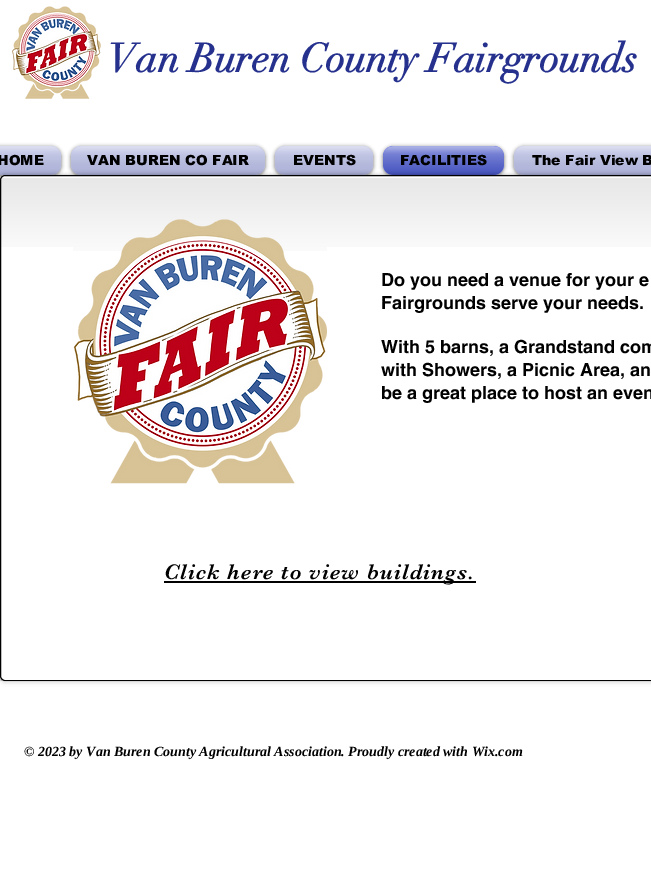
%!PS
<< /PageSize [651 895] /PageUsesTransparency true >> setpagedevice
/rgb { dup -16 bitshift 255 div exch dup -8 bitshift 255 and 255 div exch 255 and 255 div setrgbcolor } def
/font { [ exch dup neg 0 0 3 -1 roll 0 0 ] selectfont } def
/text { moveto show } def
/alpha { dup .setfillconstantalpha .setstrokeconstantalpha } def
/roundrect { 5 dict begin { /r /h /w /y /x } { exch def } forall
  x r add y moveto x w add y 2 copy h add r arct x w add y h add x 1 index r arct
  x y h add x y r arct x y 2 copy exch w add exch r arct closepath end } def
/shadow { 12 dict begin { /a /b /q /h /w /y /x } { exch def } forall gsave /was 0 def
  9 -2 -9 { dup b mul 4 div /e exch def 1 sub .425 mul 2.718 exch exp 1 add a .99 .min exch div /now exch def
    1 1 now sub 1 was sub div sub alpha /was now def
    w h .min e 2 mul add 0 gt { x e sub y e sub w e 2 mul add h e 2 mul add
      q e add b .6 mul add w h .min 2 div e add .min 0 .max roundrect fill } if } for grestore end } def
/picture { 5 dict begin { /h /w /y /x /name } { exch def } forall
  gsave x y translate w h scale
  w h 8 [w 0 0 h 0 0] name (r) file false 3 colorimage grestore end } def
0 .pushpdf14devicefilter
0 895 translate 1 -1 scale
4 setmiterlimit
/s1 { /didot-Bold 40 font 16#25318D rgb } def
/s2 { /arial-Black 14 font 16#000000 rgb } def
/s3 { /helvetica-Bold 18 font 16#000000 rgb } def
/s4 { /LiberationSerif-BoldItalic 14 font 16#000000 rgb } def
16#FFFFFF rgb
0 0 651 895 rectfill
(pic1.raw) 12 6 89 93 picture
s1
(Van Buren County Fairgrounds) 108 72 text
gsave
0 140 moveto 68 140 lineto 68 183 lineto 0 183 lineto closepath -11 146 moveto 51 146 lineto 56.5 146 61 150.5 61 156 curveto 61 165 lineto 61 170.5 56.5 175 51 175 curveto -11 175 lineto -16.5 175 -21 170.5 -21 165 curveto -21 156 lineto -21 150.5 -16.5 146 -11 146 curveto closepath eoclip newpath
16#000000 rgb
-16 147 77 29 10 2 0.6 shadow
grestore
0.36 alpha
16#384AD3 rgb
-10 146 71 29 10 roundrect fill
1 alpha
(pic2.raw) 0 146 61 29 picture
(pic3.raw) 0 146 61 29 picture
s2
(HOME) -3 165 text
gsave
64 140 moveto 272 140 lineto 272 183 lineto 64 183 lineto closepath 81 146 moveto 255 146 lineto 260.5 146 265 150.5 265 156 curveto 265 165 lineto 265 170.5 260.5 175 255 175 curveto 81 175 lineto 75.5 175 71 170.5 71 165 curveto 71 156 lineto 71 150.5 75.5 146 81 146 curveto closepath eoclip newpath
71 147 194 29 10 2 0.6 shadow
grestore
0.36 alpha
16#384AD3 rgb
71 146 194 29 10 roundrect fill
1 alpha
(pic4.raw) 71 146 194 29 picture
(pic5.raw) 71 146 194 29 picture
s2
(VAN BUREN CO FAIR) 87 165 text
gsave
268 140 moveto 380 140 lineto 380 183 lineto 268 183 lineto closepath 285 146 moveto 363 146 lineto 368.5 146 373 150.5 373 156 curveto 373 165 lineto 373 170.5 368.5 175 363 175 curveto 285 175 lineto 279.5 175 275 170.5 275 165 curveto 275 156 lineto 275 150.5 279.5 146 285 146 curveto closepath eoclip newpath
275 147 98 29 10 2 0.6 shadow
grestore
0.36 alpha
16#384AD3 rgb
275 146 98 29 10 roundrect fill
1 alpha
(pic6.raw) 275 146 98 29 picture
(pic7.raw) 275 146 98 29 picture
s2
(EVENTS) 293 165 text
383 147 121 29 10 2 0.6 shadow
16#384AD3 rgb
383 146 121 29 10 roundrect fill
(pic8.raw) 383 146 121 29 picture
(pic9.raw) 383 146 121 29 picture
s2
(FACILITIES) 400 165 text
gsave
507 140 moveto 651 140 lineto 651 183 lineto 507 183 lineto closepath 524 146 moveto 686 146 lineto 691.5 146 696 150.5 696 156 curveto 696 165 lineto 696 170.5 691.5 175 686 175 curveto 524 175 lineto 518.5 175 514 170.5 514 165 curveto 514 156 lineto 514 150.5 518.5 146 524 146 curveto closepath eoclip newpath
514 147 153 29 10 2 0.6 shadow
grestore
0.36 alpha
16#384AD3 rgb
514 146 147 29 10 roundrect fill
1 alpha
(pic10.raw) 514 146 137 29 picture
(pic11.raw) 514 146 137 29 picture
s2
(The Fair View B) 532 165 text
gsave
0 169 moveto 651 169 lineto 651 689 lineto 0 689 lineto closepath 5 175 moveto 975 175 lineto 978 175 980 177 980 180 curveto 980 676 lineto 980 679 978 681 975 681 curveto 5 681 lineto 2 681 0 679 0 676 curveto 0 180 lineto 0 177 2 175 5 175 curveto closepath eoclip newpath
0 176 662 506 5 2 0.6 shadow
grestore
0.98 alpha
16#FFFFFF rgb
0 175 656 506 5 roundrect fill
1 alpha
(pic12.raw) 0 178 651 69 picture
16#000000 rgb
0.5 175.5 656 505 4.5 roundrect stroke
(pic13.raw) 73 219 254 265 picture
s3
(Do you need a venue for your e) 381 286 text
(Fairgrounds serve your needs.) 381 309 text
(With 5 barns, a Grandstand com) 381 353 text
(with Showers, a Picnic Area, an) 381 376 text
(be a great place to host an even) 381 399 text
164 581 312 2 rectfill
/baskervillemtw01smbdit-Regular 22 font
164 579 moveto 1.1 0 (Click here to view buildings.) ashow
0.6 alpha
16#FFFFFF rgb
0 681 651 5 rectfill
0.26 alpha
1 681 650 2 rectfill
1 alpha
s4
(© 2023 by Van Buren County Agricultural Association. Proudly created with Wix.com) 24 756 text
.poppdf14devicefilter showpage
